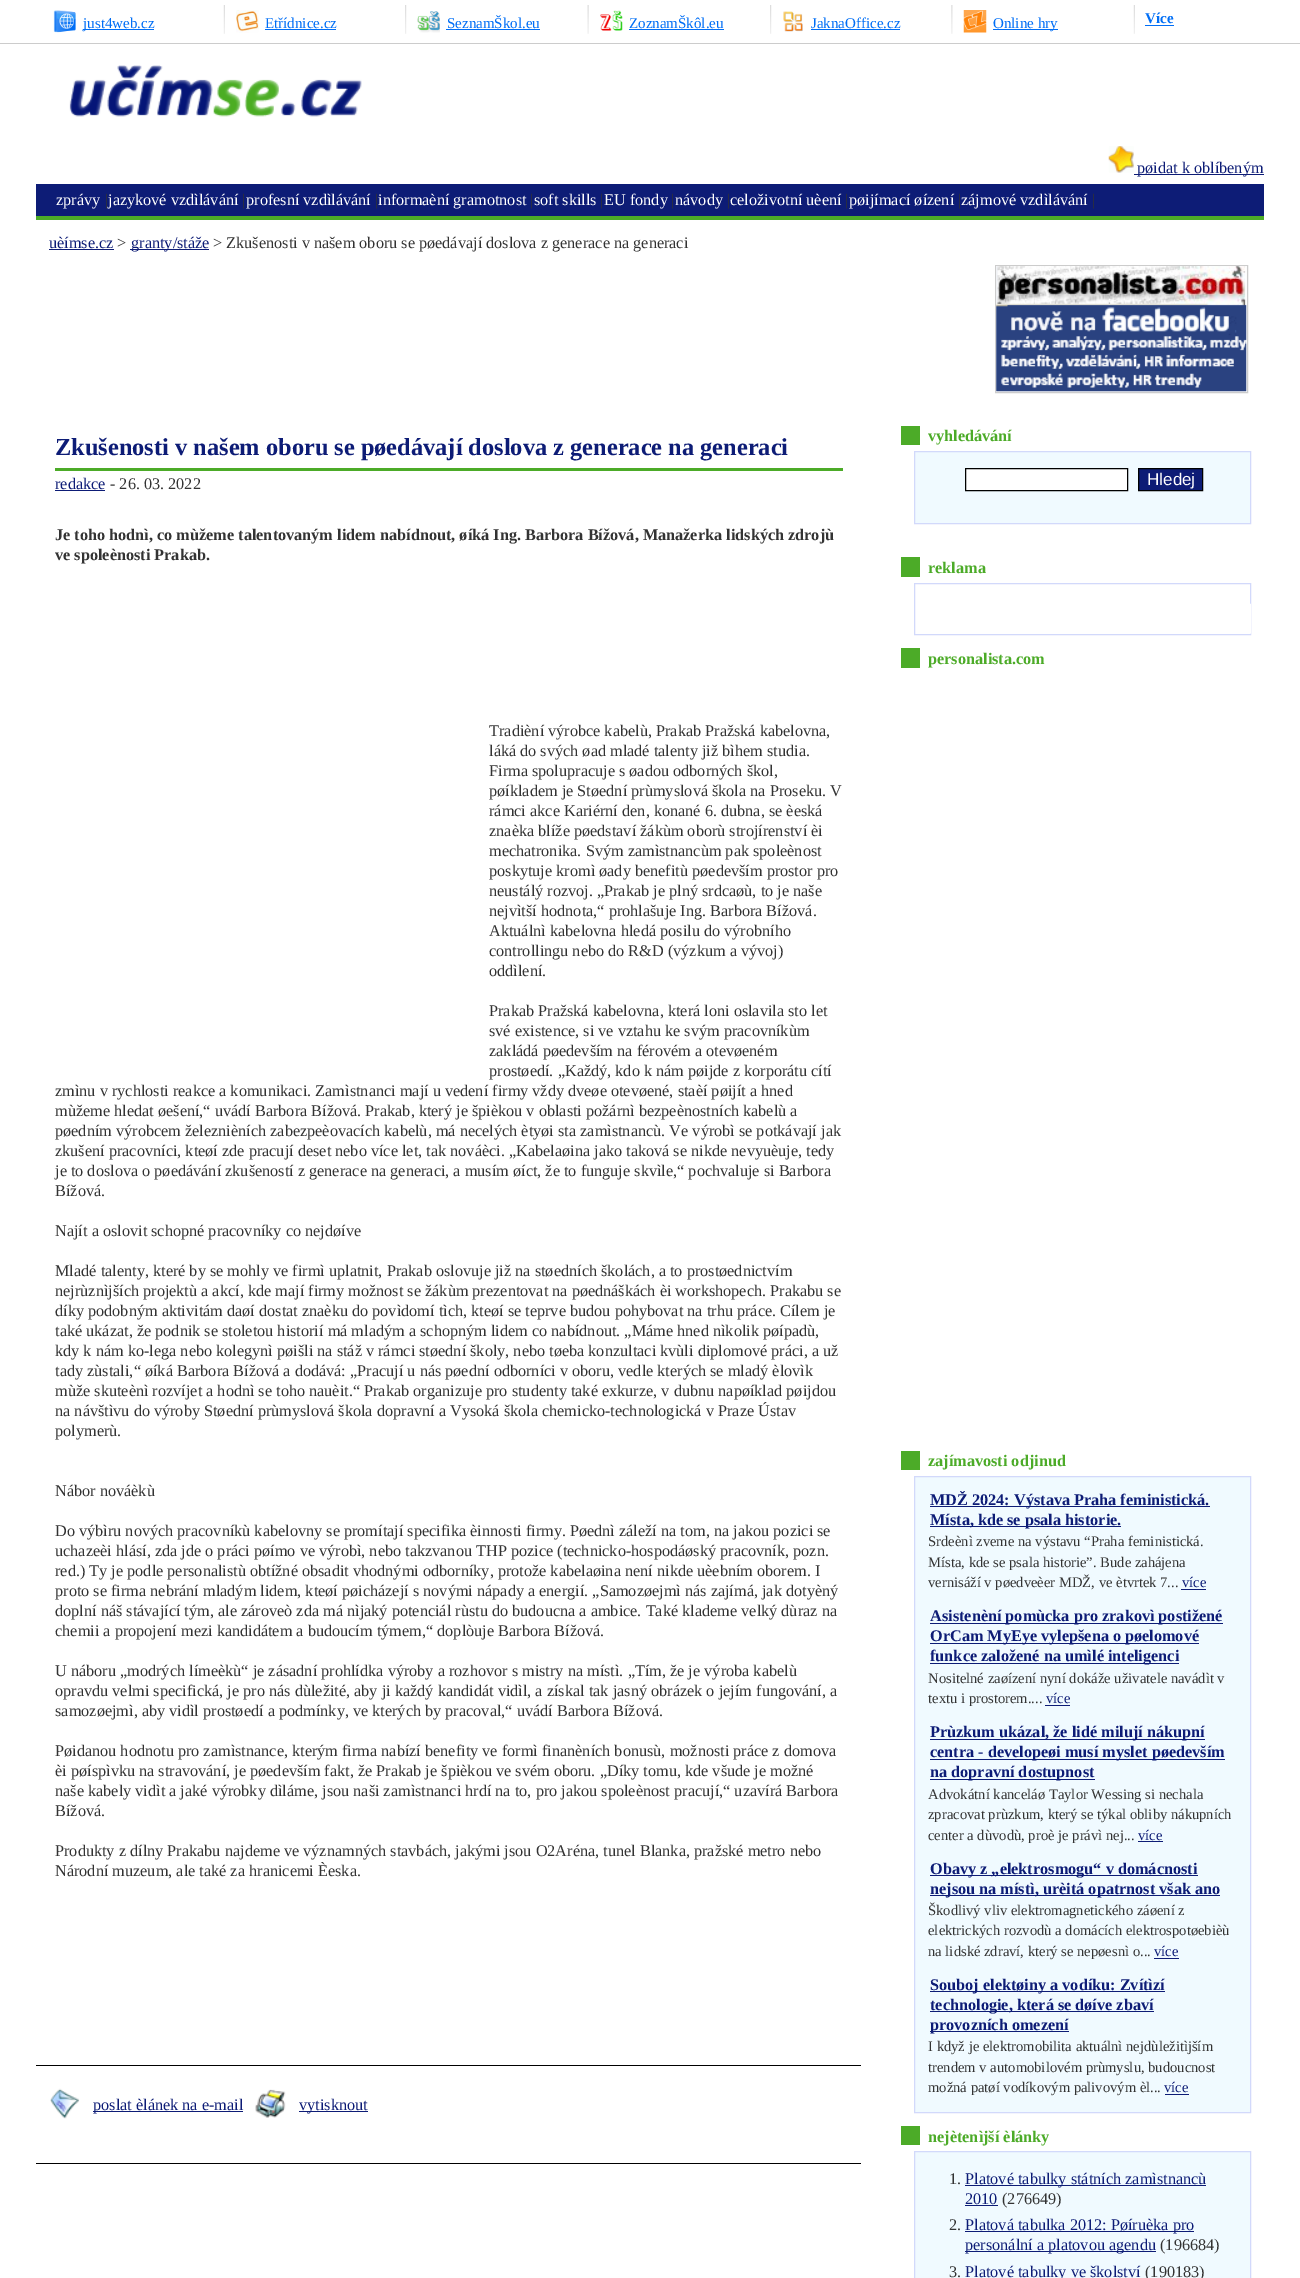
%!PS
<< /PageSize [1300 2278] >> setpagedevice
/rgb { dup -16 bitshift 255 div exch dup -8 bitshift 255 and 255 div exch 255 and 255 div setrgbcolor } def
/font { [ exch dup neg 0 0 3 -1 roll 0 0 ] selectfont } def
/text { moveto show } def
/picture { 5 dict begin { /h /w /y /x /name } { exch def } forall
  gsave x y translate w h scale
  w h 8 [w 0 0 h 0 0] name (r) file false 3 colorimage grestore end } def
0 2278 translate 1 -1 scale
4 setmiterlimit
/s1 { /LiberationSerif-Regular 15 font 16#006EF6 rgb } def
/s2 { /LiberationSerif-Bold 15 font 16#006EF6 rgb } def
/s3 { /LiberationSerif-Regular 16.25 font 16#0D1C76 rgb } def
/s4 { /LiberationSerif-Regular 16.25 font 16#FFFFFF rgb } def
/s5 { /LiberationSerif-Regular 16.25 font 16#333333 rgb } def
/s6 { /LiberationSerif-Bold 24.4 font 16#0D1C76 rgb } def
/s7 { /LiberationSerif-Bold 16.25 font 16#333333 rgb } def
/s8 { /LiberationSerif-Bold 16.25 font 16#4CAB28 rgb } def
/s9 { /LiberationSans-Regular 17 font 16#FFFFFF rgb } def
/s10 { /LiberationSerif-Bold 16.25 font 16#0D1C76 rgb } def
/s11 { /LiberationSerif-Regular 14.6 font 16#333333 rgb } def
/s12 { /LiberationSerif-Regular 14.6 font 16#0D1C76 rgb } def
16#FFFFFF rgb
0 0 1300 2278 rectfill
16#CCCCCC rgb
0 43 1300 1 rectfill
(pic1.raw) 223 5 2 29 picture
(pic2.raw) 53 10 23 23 picture
16#006EF6 rgb
83 29 71 1 rectfill
s1
(just4web.cz) 83 28 text
(pic3.raw) 405 5 2 29 picture
(pic4.raw) 236 10 23 23 picture
(Etřídnice.cz) 265 28 text
265 29 71 1 rectfill
(pic5.raw) 587 5 2 29 picture
(pic6.raw) 417 11 23 22 picture
(SeznamŠkol.eu) 447 28 text
446 29 94 1 rectfill
(pic3.raw) 770 5 2 29 picture
(pic7.raw) 600 10 23 21 picture
(ZoznamŠkôl.eu) 629 28 text
629 29 95 1 rectfill
(pic8.raw) 951 5 2 29 picture
(pic9.raw) 783 11 20 21 picture
(JaknaOffice.cz) 811 28 text
811 29 89 1 rectfill
(pic1.raw) 1133 5 2 29 picture
(pic10.raw) 963 10 24 23 picture
993 29 65 1 rectfill
(Online hry) 993 28 text
s2
(Více) 1145 23 text
1145 25 29 1 rectfill
(pic11.raw) 69 65 293 52 picture
(pic12.raw) 1108 146 26 27 picture
16#0D1C76 rgb
1134 174 130 1 rectfill
s3
(pøidat k oblíbeným) 1137 173 text
36 184 1228 32 rectfill
16#4CAB28 rgb
36 216 1228 4 rectfill
s4
(zprávy) 56 205 text
s5
(|) 105 205 text
s4
(jazykové vzdìlávání) 108 205 text
s5
(|) 242 205 text
s4
(profesní vzdìlávání) 246 205 text
s5
(|) 375 205 text
s4
(informaèní gramotnost) 378 205 text
s5
(|) 530 205 text
s4
(soft skills) 534 205 text
s5
(|) 600 205 text
s4
(EU fondy) 604 205 text
s5
(|) 671 205 text
s4
(návody) 675 205 text
s5
(|) 727 205 text
s4
(celoživotní uèení) 730 205 text
s5
(|) 845 205 text
s4
(pøijímací øízení) 849 205 text
s5
(|) 958 205 text
s4
(zájmové vzdìlávání) 961 205 text
s5
(|) 1092 205 text
s3
(uèímse.cz) 49 248 text
49 249 65 1 rectfill
s5
(>) 117 248 text
16#0D1C76 rgb
130 249 79 1 rectfill
(granty/stáže) 131 248 text
s5
(> Zkušenosti v našem oboru se pøedávají doslova z generace na generaci) 213 248 text
16#FBFBFB rgb
995.5 265.5 moveto 1247.5 265.5 lineto 1247.5 392.5 lineto 995.5 392.5 lineto closepath gsave fill grestore
16#CCCCCC rgb
stroke
(pic13.raw) 996 266 251 126 picture
16#4CAB28 rgb
55 468 788 3 rectfill
s6
(Zkušenosti v našem oboru se pøedávají doslova z generace na generaci) 55 455 text
s3
(redakce) 55 489 text
55 490 50 1 rectfill
s5
(- 26. 03. 2022) 110 489 text
s7
(Je toho hodnì, co mùžeme talentovaným lidem nabídnout, øíká Ing. Barbora Bížová, Manažerka lidských zdrojù) 55 540 text
(ve spoleènosti Prakab.) 55 560 text
s5
(Tradièní výrobce kabelù, Prakab Pražská kabelovna,) 489 736 text
(láká do svých øad mladé talenty již bìhem studia.) 489 756 text
(Firma spolupracuje s øadou odborných škol,) 489 776 text
(pøíkladem je Støední prùmyslová škola na Proseku. V) 489 796 text
(rámci akce Kariérní den, konané 6. dubna, se èeská) 489 816 text
(znaèka blíže pøedstaví žákùm oborù strojírenství èi) 489 836 text
(mechatronika. Svým zamìstnancùm pak spoleènost) 489 856 text
(poskytuje kromì øady benefitù pøedevším prostor pro) 489 876 text
(neustálý rozvoj. „Prakab je plný srdcaøù, to je naše) 489 896 text
(nejvìtší hodnota,“ prohlašuje Ing. Barbora Bížová.) 489 916 text
(Aktuálnì kabelovna hledá posilu do výrobního) 489 936 text
(controllingu nebo do R&D \(výzkum a vývoj\)) 489 956 text
(oddìlení.) 489 976 text
(Prakab Pražská kabelovna, která loni oslavila sto let) 489 1016 text
(své existence, si ve vztahu ke svým pracovníkùm) 489 1036 text
(zakládá pøedevším na férovém a otevøeném) 489 1056 text
(prostøedí. „Každý, kdo k nám pøijde z korporátu cítí) 489 1076 text
(zmìnu v rychlosti reakce a komunikaci. Zamìstnanci mají u vedení firmy vždy dveøe otevøené, staèí pøijít a hned) 55 1096 text
(mùžeme hledat øešení,“ uvádí Barbora Bížová. Prakab, který je špièkou v oblasti požárnì bezpeènostních kabelù a) 55 1116 text
(pøedním výrobcem železnièních zabezpeèovacích kabelù, má necelých ètyøi sta zamìstnancù. Ve výrobì se potkávají jak) 55 1136 text
(zkušení pracovníci, kteøí zde pracují deset nebo více let, tak nováèci. „Kabelaøina jako taková se nikde nevyuèuje, tedy) 55 1156 text
(je to doslova o pøedávání zkušeností z generace na generaci, a musím øíct, že to funguje skvìle,“ pochvaluje si Barbora) 55 1176 text
(Bížová.) 55 1196 text
(Najít a oslovit schopné pracovníky co nejdøíve) 55 1236 text
(Mladé talenty, které by se mohly ve firmì uplatnit, Prakab oslovuje již na støedních školách, a to prostøednictvím) 55 1276 text
(nejrùznìjších projektù a akcí, kde mají firmy možnost se žákùm prezentovat na pøednáškách èi workshopech. Prakabu se) 55 1296 text
(díky podobným aktivitám daøí dostat znaèku do povìdomí tìch, kteøí se teprve budou pohybovat na trhu práce. Cílem je) 55 1316 text
(také ukázat, že podnik se stoletou historií má mladým a schopným lidem co nabídnout. „Máme hned nìkolik pøípadù,) 55 1336 text
(kdy k nám ko-lega nebo kolegynì pøišli na stáž v rámci støední školy, nebo tøeba konzultaci kvùli diplomové práci, a už) 55 1356 text
(tady zùstali,“ øíká Barbora Bížová a dodává: „Pracují u nás pøední odborníci v oboru, vedle kterých se mladý èlovìk) 55 1376 text
(mùže skuteènì rozvíjet a hodnì se toho nauèit.“ Prakab organizuje pro studenty také exkurze, v dubnu napøíklad pøijdou) 55 1396 text
(na návštìvu do výroby Støední prùmyslová škola dopravní a Vysoká škola chemicko-technologická v Praze Ústav) 55 1416 text
(polymerù.) 55 1436 text
(Nábor nováèkù) 55 1496 text
(Do výbìru nových pracovníkù kabelovny se promítají specifika èinnosti firmy. Pøednì záleží na tom, na jakou pozici se) 55 1536 text
(uchazeèi hlásí, zda jde o práci pøímo ve výrobì, nebo takzvanou THP pozice \(technicko-hospodáøský pracovník, pozn.) 55 1556 text
(red.\) Ty je podle personalistù obtížné obsadit vhodnými odborníky, protože kabelaøina není nikde uèebním oborem. I) 55 1576 text
(proto se firma nebrání mladým lidem, kteøí pøicházejí s novými nápady a energií. „Samozøejmì nás zajímá, jak dotyèný) 55 1596 text
(doplní náš stávající tým, ale zároveò zda má nìjaký potenciál rùstu do budoucna a ambice. Také klademe velký dùraz na) 55 1616 text
(chemii a propojení mezi kandidátem a budoucím týmem,“ doplòuje Barbora Bížová.) 55 1636 text
(U náboru „modrých límeèkù“ je zásadní prohlídka výroby a rozhovor s mistry na místì. „Tím, že je výroba kabelù) 55 1676 text
(opravdu velmi specifická, je pro nás dùležité, aby ji každý kandidát vidìl, a získal tak jasný obrázek o jejím fungování, a) 55 1696 text
(samozøejmì, aby vidìl prostøedí a podmínky, ve kterých by pracoval,“ uvádí Barbora Bížová.) 55 1716 text
(Pøidanou hodnotu pro zamìstnance, kterým firma nabízí benefity ve formì finanèních bonusù, možnosti práce z domova) 55 1756 text
(èi pøíspìvku na stravování, je pøedevším fakt, že Prakab je špièkou ve svém oboru. „Díky tomu, kde všude je možné) 55 1776 text
(naše kabely vidìt a jaké výrobky dìláme, jsou naši zamìstnanci hrdí na to, pro jakou spoleènost pracují,“ uzavírá Barbora) 55 1796 text
(Bížová.) 55 1816 text
(Produkty z dílny Prakabu najdeme ve významných stavbách, jakými jsou O2Aréna, tunel Blanka, pražské metro nebo) 55 1856 text
(Národní muzeum, ale také za hranicemi Èeska.) 55 1876 text
16#000000 rgb
36 2065 825 1 rectfill
36 2163 825 1 rectfill
(pic14.raw) 50 2088 30 31 picture
16#0D1C76 rgb
93 2111 150 1 rectfill
(poslat èlánek na e-mail) 93 2110 text
(pic15.raw) 255 2089 31 29 picture
299 2111 69 1 rectfill
(vytisknout) 299 2110 text
16#4CAB28 rgb
901 426 19 19 rectfill
s8
(vyhledávání) 928 441 text
16#F0FAFF rgb
914.5 451.5 moveto 1250.5 451.5 lineto 1250.5 523.5 lineto 914.5 523.5 lineto closepath gsave fill grestore
16#D2D9FB rgb
stroke
16#FFFFFF rgb
965.5 468.5 moveto 1127.5 468.5 lineto 1127.5 490.5 lineto 965.5 490.5 lineto closepath gsave fill grestore
16#000000 rgb
stroke
16#0D1C76 rgb
1138.5 468.5 moveto 1202.5 468.5 lineto 1202.5 490.5 lineto 1138.5 490.5 lineto closepath gsave fill grestore
16#000000 rgb
stroke
s9
(Hledej) 1147 485 text
16#4CAB28 rgb
901 557 19 20 rectfill
s8
(reklama) 928 573 text
16#D2D9FB rgb
914.5 583.5 336 51 rectstroke
(pic16.raw) 1250 603 1 31 picture
16#4CAB28 rgb
901 648 19 20 rectfill
(personalista.com) 928 664 text
901 1451 19 19 rectfill
(zajímavosti odjinud) 928 1466 text
16#F0FAFF rgb
914.5 1476.5 moveto 1250.5 1476.5 lineto 1250.5 2112.5 lineto 914.5 2112.5 lineto closepath gsave fill grestore
16#D2D9FB rgb
stroke
16#0D1C76 rgb
930 1506 280 1 rectfill
(MDŽ 2024: Výstava Praha feministická.) 930 1505 text
930 1526 191 1 rectfill
(Místa, kde se psala historie.) 930 1525 text
s11
(Srdeènì zveme na výstavu “Praha feministická.) 928 1546 text
(Místa, kde se psala historie”. Bude zahájena) 928 1567 text
(vernisáží v pøedveèer MDŽ, ve ètvrtek 7...) 928 1587 text
s12
(více) 1182 1587 text
1181 1589 25 1 rectfill
930 1623 293 1 rectfill
s10
(Asistenèní pomùcka pro zrakovì postižené) 930 1621 text
930 1643 269 1 rectfill
(OrCam MyEye vylepšena o pøelomové) 930 1641 text
930 1663 249 1 rectfill
(funkce založené na umìlé inteligenci) 930 1661 text
s11
(Nositelné zaøízení nyní dokáže uživatele navádìt v) 928 1683 text
(textu i prostorem....) 928 1703 text
16#0D1C76 rgb
1045 1705 25 1 rectfill
(více) 1046 1703 text
930 1739 275 1 rectfill
s10
(Prùzkum ukázal, že lidé milují nákupní) 930 1737 text
930 1759 295 1 rectfill
(centra - developeøi musí myslet pøedevším) 930 1757 text
930 1779 165 1 rectfill
(na dopravní dostupnost) 930 1777 text
s11
(Advokátní kanceláø Taylor Wessing si nechala) 928 1799 text
(zpracovat prùzkum, který se týkal obliby nákupních) 928 1819 text
(center a dùvodù, proè je právì nej...) 928 1840 text
s12
(více) 1138 1840 text
1138 1841 25 1 rectfill
930 1875 268 1 rectfill
s10
(Obavy z „elektrosmogu“ v domácnosti) 930 1874 text
930 1895 290 1 rectfill
(nejsou na místì, urèitá opatrnost však ano) 930 1894 text
s11
(Škodlivý vliv elektromagnetického záøení z) 928 1915 text
(elektrických rozvodù a domácích elektrospotøebièù) 928 1935 text
(na lidské zdraví, který se nepøesnì o...) 928 1956 text
s12
(více) 1154 1956 text
1154 1958 25 1 rectfill
930 1991 235 1 rectfill
s10
(Souboj elektøiny a vodíku: Zvítìzí) 930 1990 text
930 2011 224 1 rectfill
(technologie, která se døíve zbaví) 930 2010 text
930 2031 139 1 rectfill
(provozních omezení) 930 2030 text
s11
(I když je elektromobilita aktuálnì nejdùležitìjším) 928 2051 text
(trendem v automobilovém prùmyslu, budoucnost) 928 2072 text
(možná patøí vodíkovým palivovým èl...) 928 2092 text
s12
(více) 1164 2092 text
1165 2094 24 1 rectfill
16#4CAB28 rgb
901 2126 19 19 rectfill
s8
(nejètenìjší èlánky) 928 2142 text
16#F0FAFF rgb
914.5 2151.5 moveto 1250.5 2151.5 lineto 1250.5 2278.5 lineto 914.5 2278.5 lineto closepath gsave fill grestore
16#D2D9FB rgb
stroke
s5
(1.) 949 2184 text
16#0D1C76 rgb
965 2185 241 1 rectfill
(Platové tabulky státních zamìstnancù) 965 2184 text
(2010) 965 2204 text
965 2205 33 1 rectfill
s5
(\(276649\)) 1002 2204 text
(2.) 949 2230 text
16#0D1C76 rgb
965 2231 229 1 rectfill
(Platová tabulka 2012: Pøíruèka pro) 965 2230 text
965 2251 191 1 rectfill
(personální a platovou agendu) 965 2250 text
s5
(\(196684\)) 1160 2250 text
(3.) 949 2277 text
s3
(Platové tabulky ve školství) 965 2277 text
s5
(\(190183\)) 1145 2277 text
showpage
